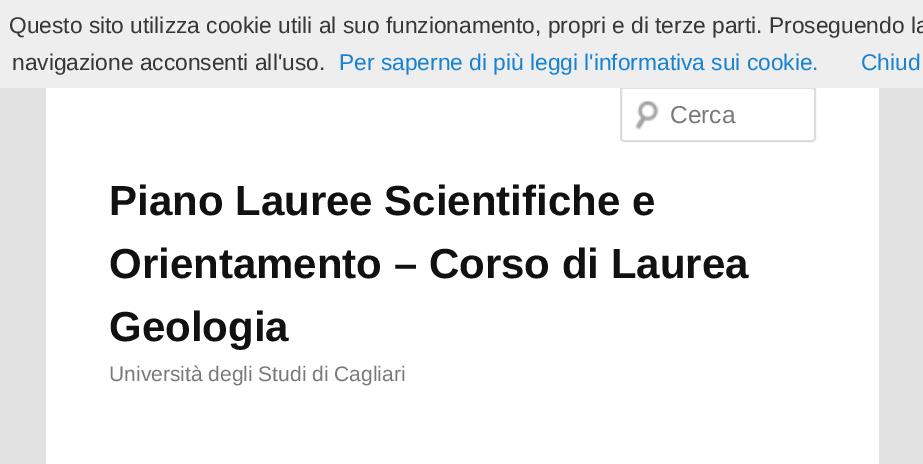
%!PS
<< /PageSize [923 464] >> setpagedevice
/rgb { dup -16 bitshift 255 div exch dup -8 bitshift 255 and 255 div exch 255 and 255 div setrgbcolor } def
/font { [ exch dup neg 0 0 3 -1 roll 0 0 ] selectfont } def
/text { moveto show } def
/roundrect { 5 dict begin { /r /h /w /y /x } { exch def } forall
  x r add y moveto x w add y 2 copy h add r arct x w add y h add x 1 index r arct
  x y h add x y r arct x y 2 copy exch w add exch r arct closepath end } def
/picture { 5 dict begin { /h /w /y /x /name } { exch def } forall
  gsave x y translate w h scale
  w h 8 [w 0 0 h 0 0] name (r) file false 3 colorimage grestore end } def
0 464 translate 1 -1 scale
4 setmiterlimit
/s1 { /LiberationSans-Regular 22.75 font 16#373737 rgb } def
/s2 { /LiberationSans-Regular 22.75 font 16#1982D1 rgb } def
/s3 { /LiberationSans-Regular 24.5 font 16#7A7A7A rgb } def
/s4 { /LiberationSans-Bold 42 font 16#111111 rgb } def
/s5 { /LiberationSans-Regular 21 font 16#7A7A7A rgb } def
16#E2E2E2 rgb
0 0 923 464 rectfill
16#FFFFFF rgb
46 88 833 376 rectfill
(pic1.raw) 635 100 24 30 picture
16#E6E6E6 rgb
623 89 moveto 812 89 lineto 814 90 lineto 814 91 lineto 814 90 lineto 814 89 813 88 812 88 curveto 623 88 lineto 622 88 621 89 621 90 curveto 621 91 lineto 621 90 622 89 623 89 curveto closepath fill
16#DDDDDD rgb
2 setlinewidth
621 87 194 54 3 roundrect stroke
16#EEEEEE rgb
0 0 923 88 rectfill
s1
(Questo sito utilizza cookie utili al suo funzionamento, propri e di terze parti. Proseguendo la) 9 33 text
(navigazione acconsenti all'uso.) 12 70 text
s2
(Per saperne di più leggi l'informativa sui cookie.) 339 70 text
(Chiud) 861 70 text
s3
(Cerca) 670 123 text
s4
(Piano Lauree Scientifiche e) 109 215 text
(Orientamento – Corso di Laurea) 109 278 text
(Geologia) 109 341 text
s5
(Università degli Studi di Cagliari) 109 381 text
showpage
